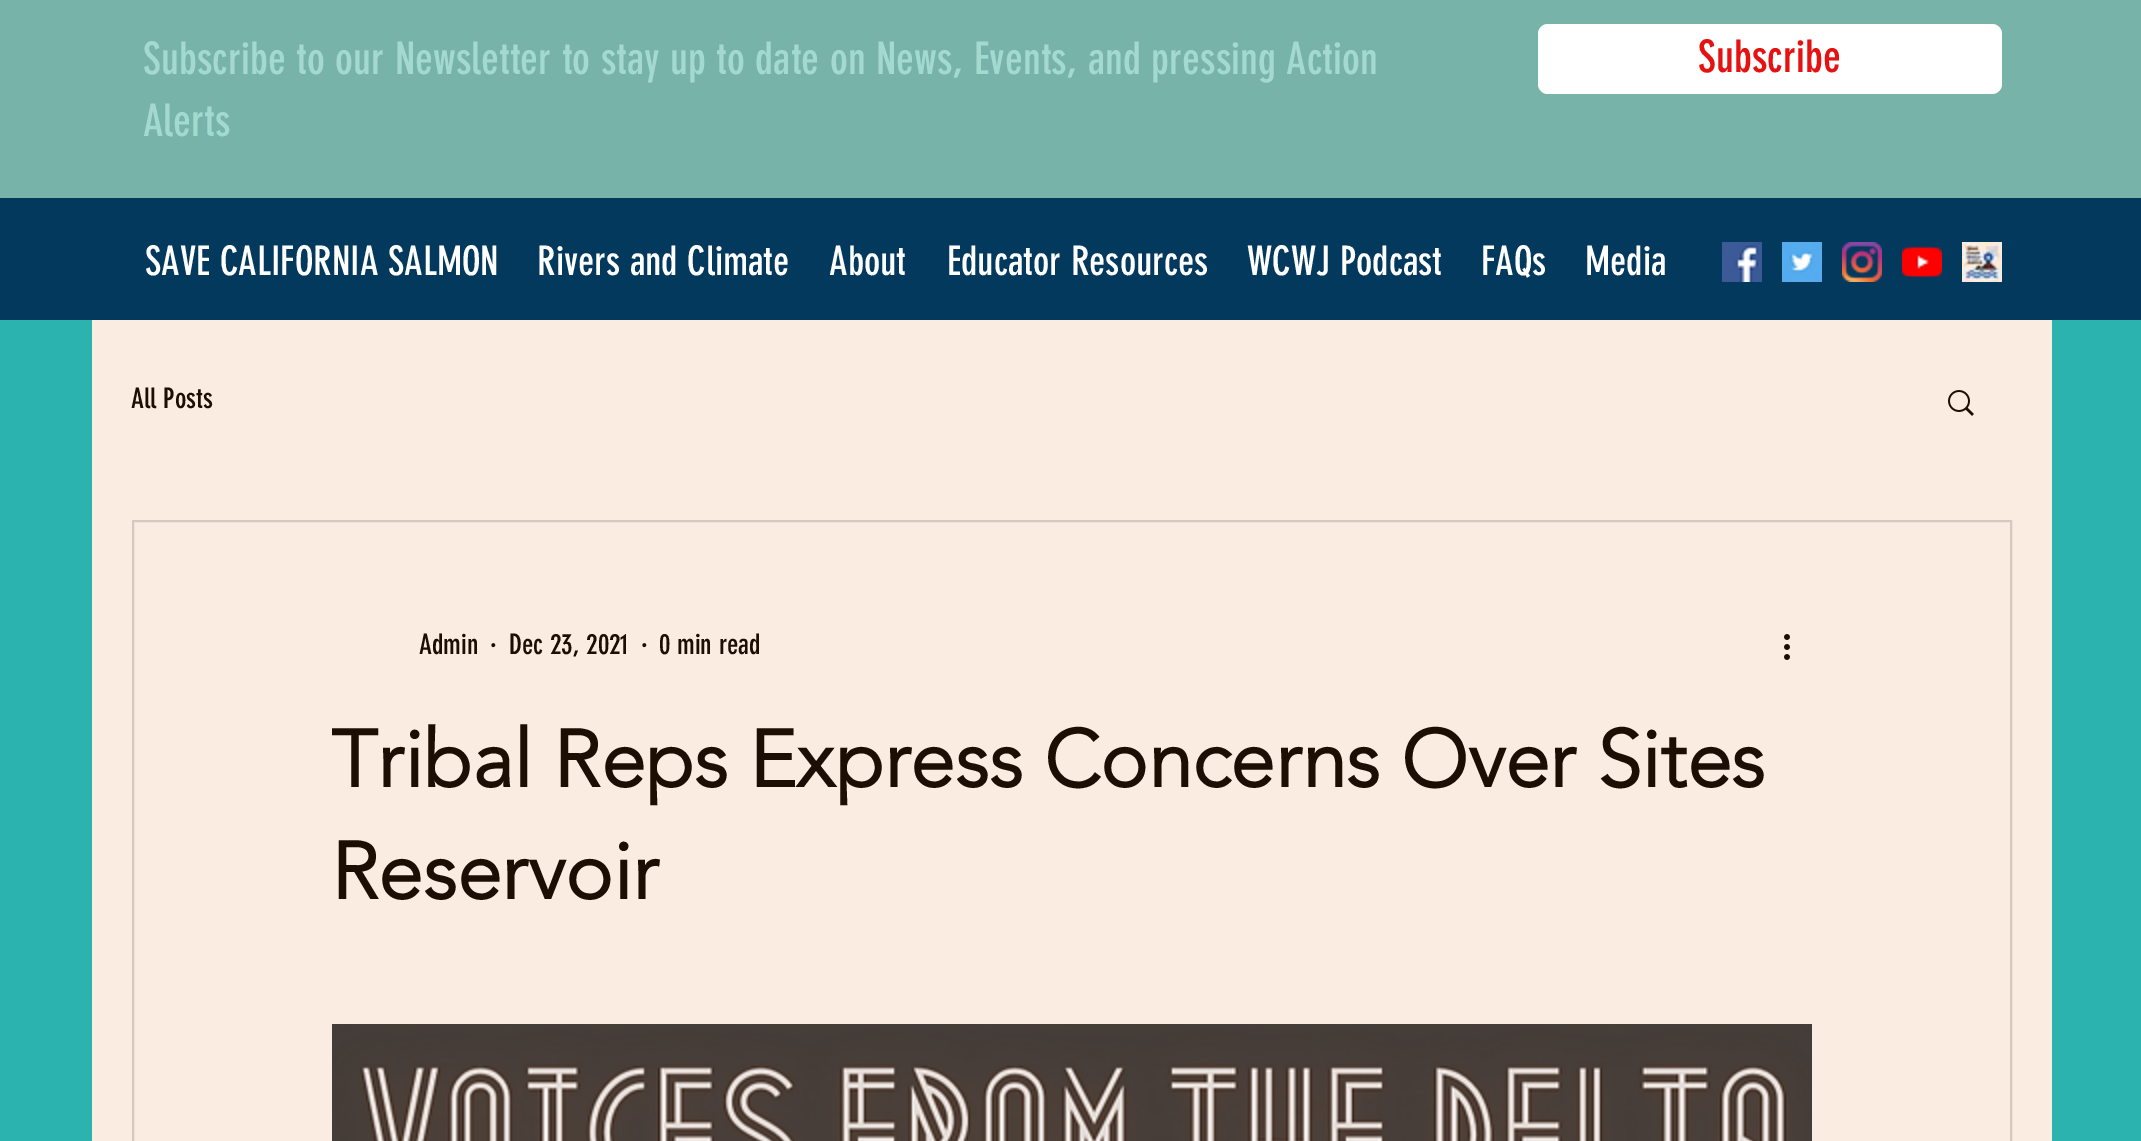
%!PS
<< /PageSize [2141 1141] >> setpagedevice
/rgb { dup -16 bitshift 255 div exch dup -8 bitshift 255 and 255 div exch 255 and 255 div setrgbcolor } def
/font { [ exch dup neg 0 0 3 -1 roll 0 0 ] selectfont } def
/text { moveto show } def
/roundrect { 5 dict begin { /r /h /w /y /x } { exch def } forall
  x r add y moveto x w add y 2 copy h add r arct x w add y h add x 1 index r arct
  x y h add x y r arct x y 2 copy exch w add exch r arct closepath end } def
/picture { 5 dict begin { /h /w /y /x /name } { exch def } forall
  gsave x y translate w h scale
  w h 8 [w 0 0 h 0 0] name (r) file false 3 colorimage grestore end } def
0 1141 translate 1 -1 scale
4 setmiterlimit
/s1 { /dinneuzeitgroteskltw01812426-Regular 44 font 16#A3D9CF rgb } def
/s2 { /dinneuzeitgroteskltw01812426-Regular 44 font 16#E61212 rgb } def
/s3 { /dinneuzeitgroteskltw01812426-Regular 40 font 16#FFFFFF rgb } def
/s4 { /dinneuzeitgroteskltw01812426-Regular 28 font 16#1D0E03 rgb } def
/s5 { /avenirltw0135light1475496-Bold 80 font 16#1D0E03 rgb } def
16#2BB3B0 rgb
0 0 2141 1141 rectfill
16#78B3A9 rgb
0 0 2141 198 rectfill
s1
(Subscribe to our Newsletter to stay up to date on News, Events, and pressing Action) 143 74 text
(Alerts) 143 136 text
16#FFFFFF rgb
1538 24 464 70 10 roundrect fill
s2
(Subscribe) 1698 72 text
16#04395E rgb
0 198 2141 122 rectfill
(pic1.raw) 1722 242 40 40 picture
(pic2.raw) 1782 242 40 40 picture
(pic3.raw) 1842 242 40 40 picture
(pic4.raw) 1902 246 40 32 picture
(pic5.raw) 1962 242 40 40 picture
s3
(SAVE CALIFORNIA SALMON) 145 275 text
(Rivers and Climate) 537 275 text
(About) 829 275 text
(Educator Resources) 947 275 text
(WCWJ Podcast) 1247 275 text
(FAQs) 1481 275 text
(Media) 1585 275 text
(pic6.raw) 1722 242 40 40 picture
(pic7.raw) 1782 242 40 40 picture
(pic8.raw) 1842 242 40 40 picture
(pic9.raw) 1902 246 40 32 picture
16#FAECE1 rgb
92 320 1960 821 rectfill
s4
(All Posts) 131 408 text
(pic10.raw) 1948 390 26 26 picture
16#D5C9BF rgb
2 setlinewidth
133 521 1878 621 rectstroke
s4
(Admin) 419 654 text
(·) 490 654 text
(Dec 23, 2021) 509 654 text
(·) 641 654 text
(0 min read) 659 654 text
(pic11.raw) 1784 634 6 26 picture
s5
(Tribal Reps Express Concerns Over Sites) 331 787 text
(Reservoir) 331 899 text
(pic12.raw) 332 1024 1480 117 picture
showpage
